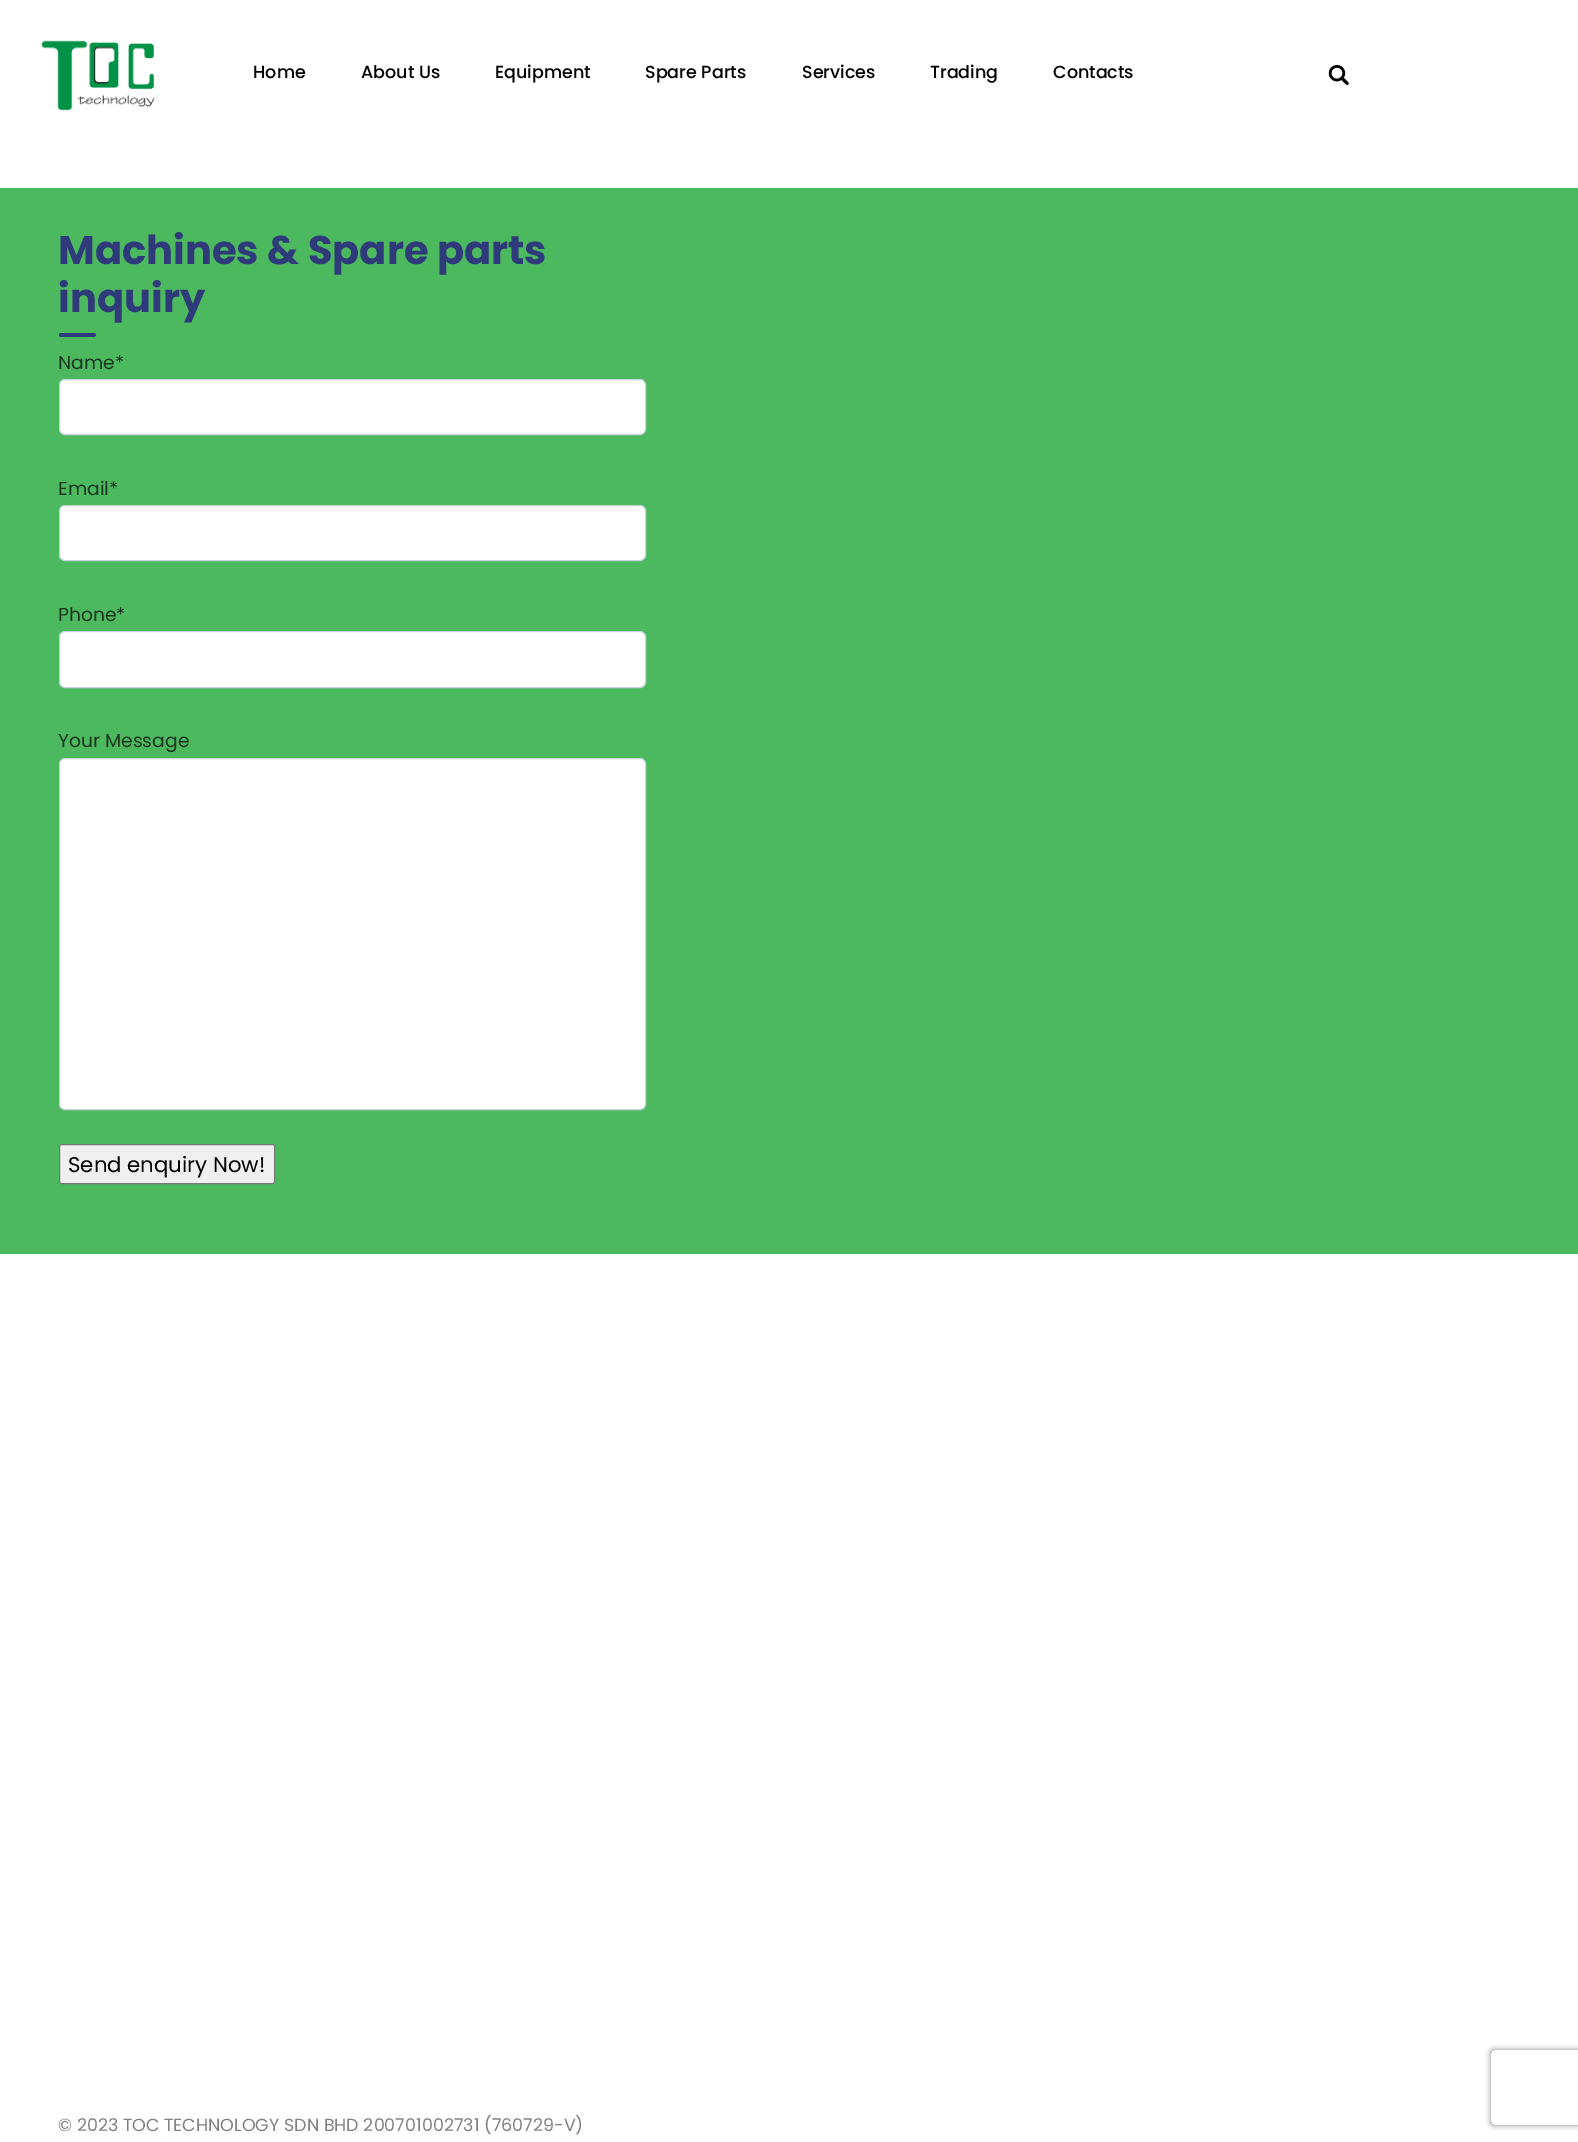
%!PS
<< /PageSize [1578 2142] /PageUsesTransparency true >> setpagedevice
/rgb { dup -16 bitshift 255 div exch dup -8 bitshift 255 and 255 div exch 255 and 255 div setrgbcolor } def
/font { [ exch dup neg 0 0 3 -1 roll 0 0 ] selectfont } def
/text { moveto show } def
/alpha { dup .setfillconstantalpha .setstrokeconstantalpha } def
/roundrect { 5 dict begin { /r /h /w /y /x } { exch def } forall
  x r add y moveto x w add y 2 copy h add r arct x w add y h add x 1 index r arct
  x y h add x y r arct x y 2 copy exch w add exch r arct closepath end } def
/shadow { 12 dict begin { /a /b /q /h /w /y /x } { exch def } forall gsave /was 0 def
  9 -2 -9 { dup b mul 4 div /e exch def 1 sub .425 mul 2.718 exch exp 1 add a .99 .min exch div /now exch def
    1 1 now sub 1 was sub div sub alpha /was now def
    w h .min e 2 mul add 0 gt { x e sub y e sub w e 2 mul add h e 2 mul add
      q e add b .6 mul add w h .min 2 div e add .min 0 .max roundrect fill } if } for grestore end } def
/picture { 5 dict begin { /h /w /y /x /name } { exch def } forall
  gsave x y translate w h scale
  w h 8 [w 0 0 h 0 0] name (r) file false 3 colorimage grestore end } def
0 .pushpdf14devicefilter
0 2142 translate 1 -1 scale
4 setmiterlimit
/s1 { /Poppins-Medium 17.5 font 16#000000 rgb } def
/s2 { /Poppins-Bold 40 font 16#2E3A79 rgb } def
/s3 { /Poppins-Regular 18.75 font 16#1B361F rgb } def
/s4 { /Poppins-Regular 21.25 font 16#000000 rgb } def
/s5 { /Poppins-Regular 17.5 font 16#808080 rgb } def
16#FFFFFF rgb
0 0 1578 2142 rectfill
(pic1.raw) 41 40 114 70 picture
s1
(Home) 253 78 text
(About Us) 361 78 text
(Equipment) 495 78 text
(Spare Parts) 645 78 text
(Services) 802 78 text
(Trading) 930 78 text
(Contacts) 1053 78 text
(pic2.raw) 1328 65 21 20 picture
16#4DB95F rgb
0 188 1578 1066 rectfill
s2
(Machines & Spare parts) 58 264 text
(inquiry) 58 312 text
59 333 37 4 2 roundrect fill
s3
(Name*) 58 369 text
16#FFFFFF rgb
59.5 379.5 586 55 5.5 roundrect gsave fill grestore
16#C5D2E2 rgb
stroke
s3
(Email*) 58 495 text
16#FFFFFF rgb
59.5 505.5 586 55 5.5 roundrect gsave fill grestore
16#C5D2E2 rgb
stroke
s3
(Phone*) 58 621 text
16#FFFFFF rgb
59.5 631.5 586 56 5.5 roundrect gsave fill grestore
16#C5D2E2 rgb
stroke
s3
(Your Message) 58 747 text
16#FFFFFF rgb
59.5 758.5 586 351 5.5 roundrect gsave fill grestore
16#C5D2E2 rgb
stroke
16#EFEFEF rgb
59.5 1144.5 215 39 2 roundrect gsave fill grestore
16#767676 rgb
stroke
s4
(Send enquiry Now!) 68 1172 text
s5
(© 2023 TOC TECHNOLOGY SDN BHD 200701002731 \(760729-V\)) 58 2131 text
gsave
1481 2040 moveto 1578 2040 lineto 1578 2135 lineto 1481 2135 lineto closepath 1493.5 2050 moveto 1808.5 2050 lineto 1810 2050 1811 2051 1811 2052.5 curveto 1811 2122.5 lineto 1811 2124 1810 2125 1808.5 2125 curveto 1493.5 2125 lineto 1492 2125 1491 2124 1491 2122.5 curveto 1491 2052.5 lineto 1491 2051 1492 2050 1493.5 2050 curveto closepath eoclip newpath
1491 2050 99 75 2.5 3 1 shadow
grestore
.poppdf14devicefilter showpage
